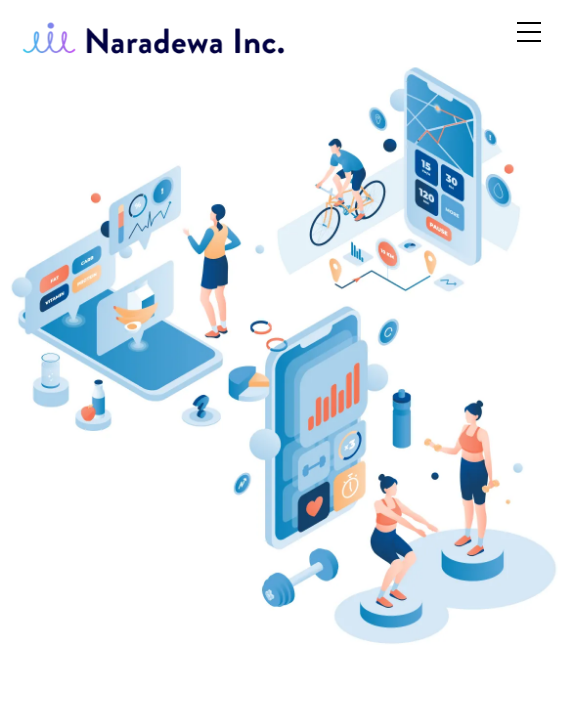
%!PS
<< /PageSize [572 702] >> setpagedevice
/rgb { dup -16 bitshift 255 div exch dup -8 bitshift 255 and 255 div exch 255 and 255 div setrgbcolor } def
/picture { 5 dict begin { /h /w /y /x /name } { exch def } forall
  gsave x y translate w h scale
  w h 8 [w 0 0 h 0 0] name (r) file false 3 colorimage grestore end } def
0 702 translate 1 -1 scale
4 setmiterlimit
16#FFFFFF rgb
0 0 572 702 rectfill
(pic1.raw) 22 22 263 32 picture
16#000000 rgb
517 22 24 2 rectfill
517 31 24 2 rectfill
517 40 24 2 rectfill
(pic2.raw) 10 67 548 578 picture
showpage
